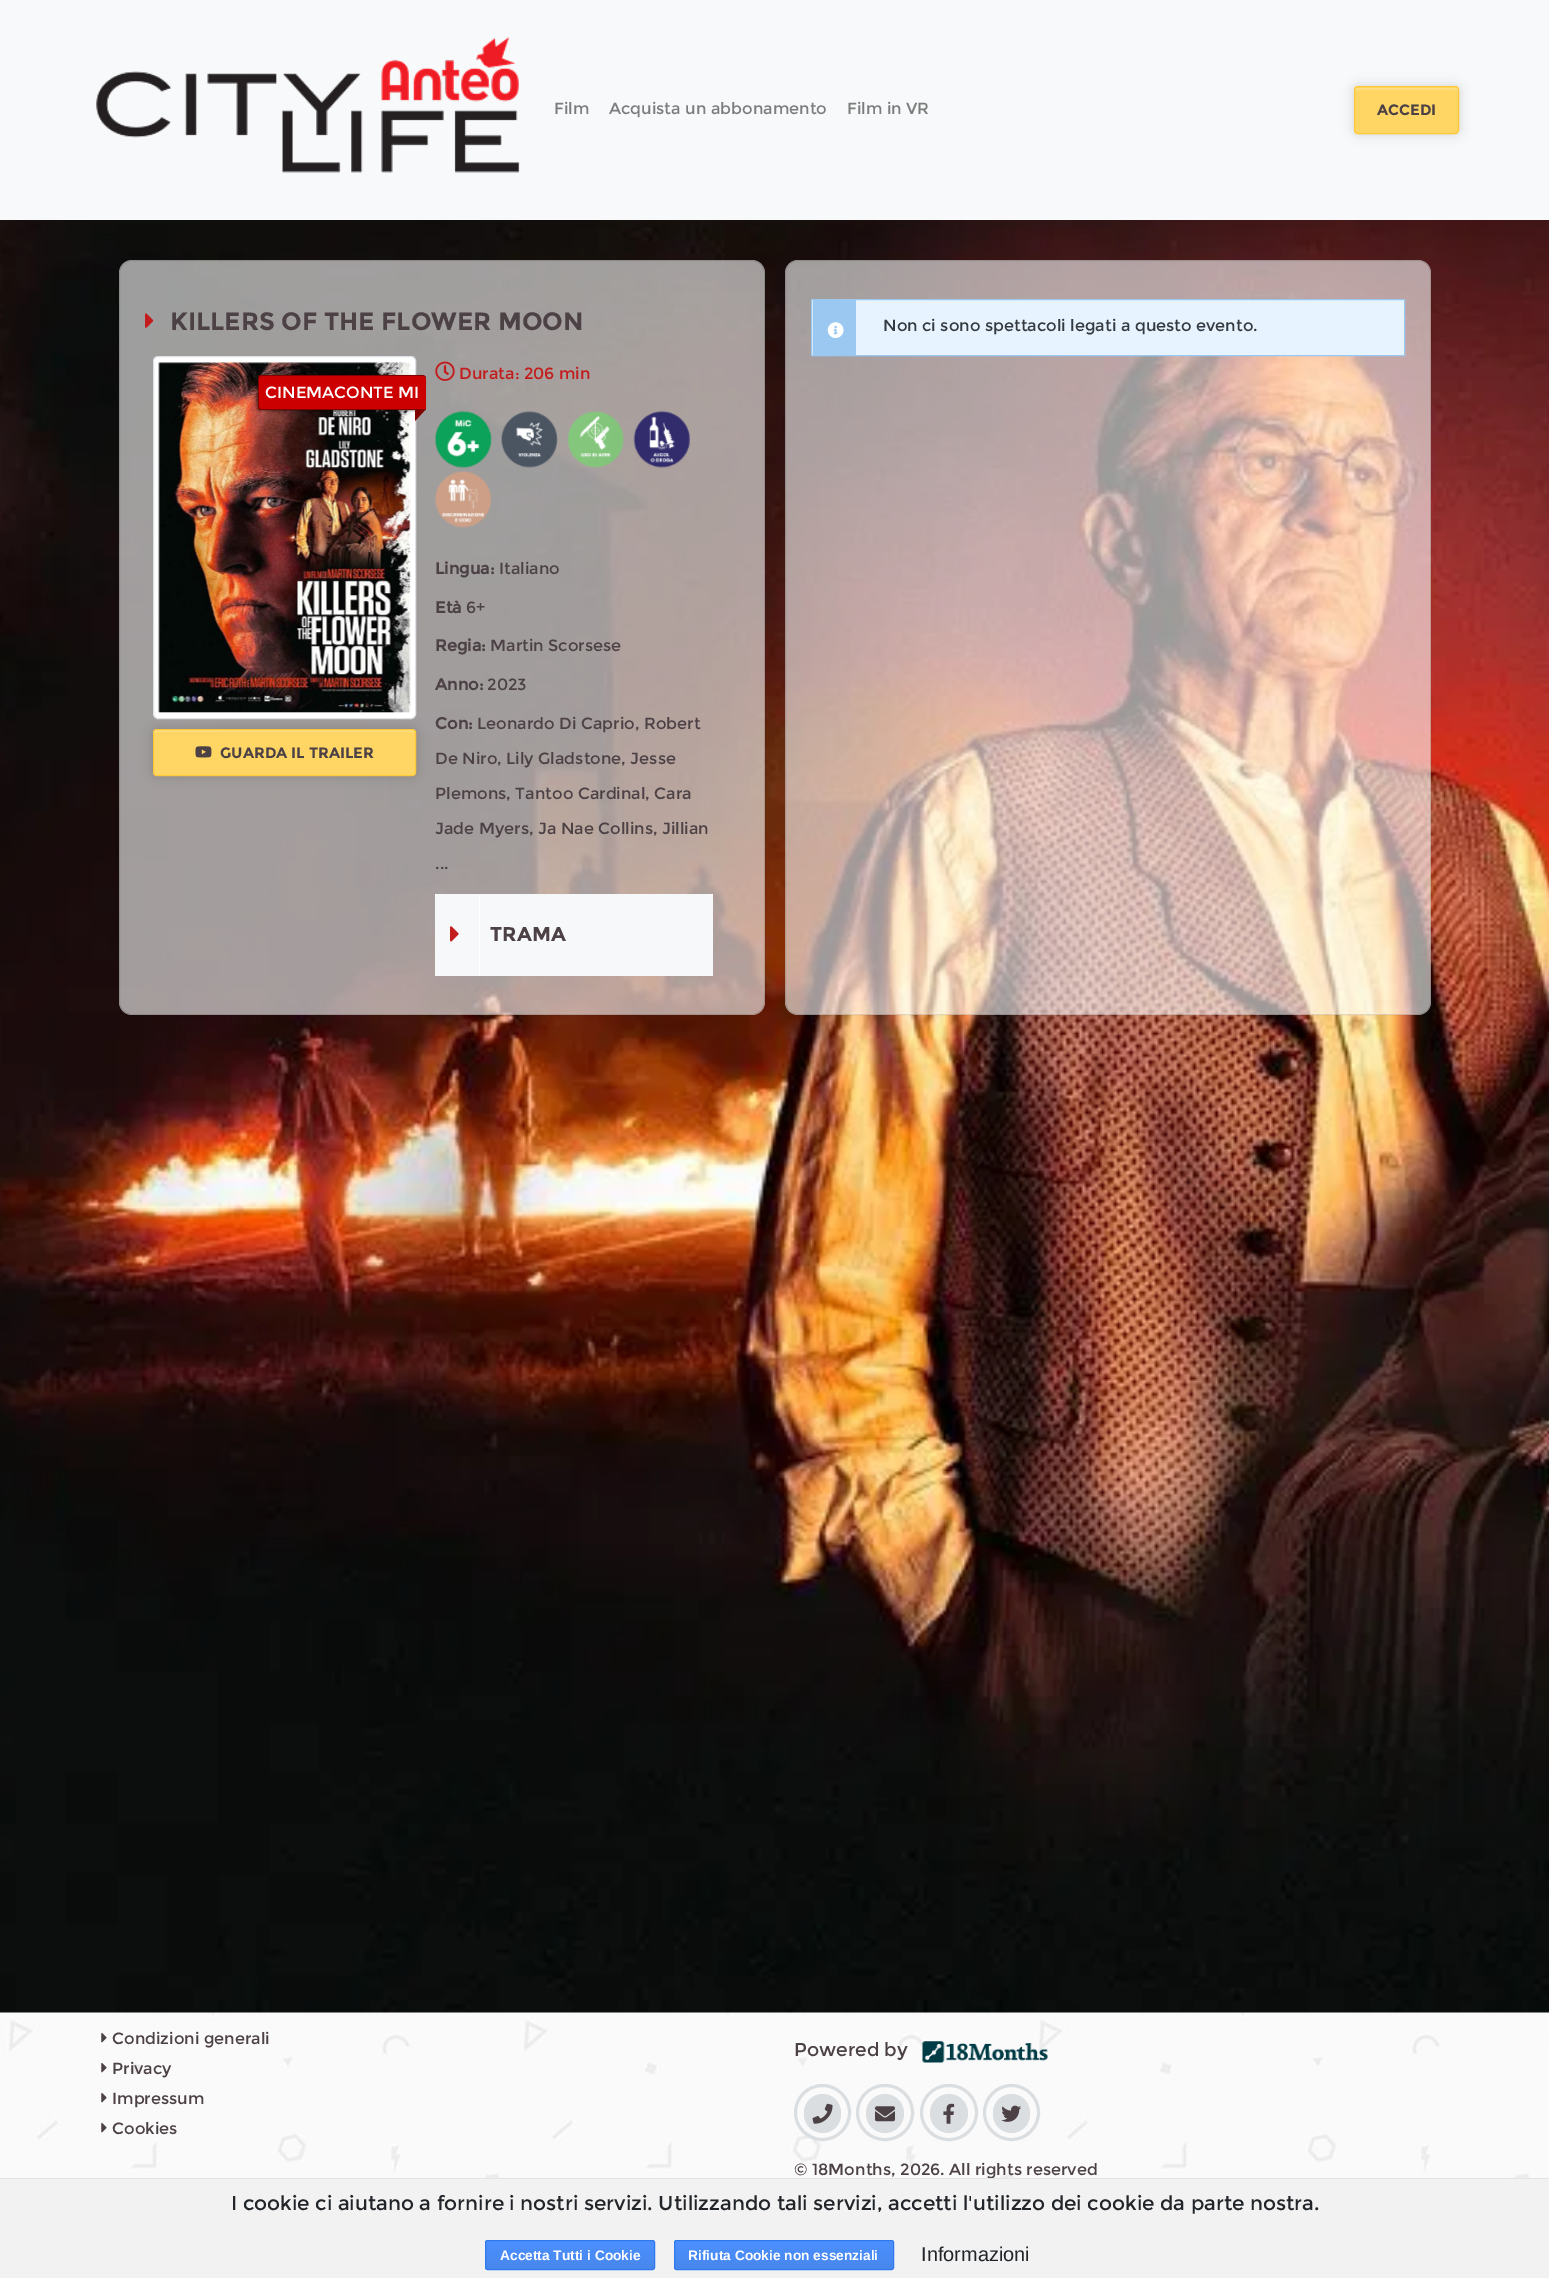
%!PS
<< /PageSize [1549 2278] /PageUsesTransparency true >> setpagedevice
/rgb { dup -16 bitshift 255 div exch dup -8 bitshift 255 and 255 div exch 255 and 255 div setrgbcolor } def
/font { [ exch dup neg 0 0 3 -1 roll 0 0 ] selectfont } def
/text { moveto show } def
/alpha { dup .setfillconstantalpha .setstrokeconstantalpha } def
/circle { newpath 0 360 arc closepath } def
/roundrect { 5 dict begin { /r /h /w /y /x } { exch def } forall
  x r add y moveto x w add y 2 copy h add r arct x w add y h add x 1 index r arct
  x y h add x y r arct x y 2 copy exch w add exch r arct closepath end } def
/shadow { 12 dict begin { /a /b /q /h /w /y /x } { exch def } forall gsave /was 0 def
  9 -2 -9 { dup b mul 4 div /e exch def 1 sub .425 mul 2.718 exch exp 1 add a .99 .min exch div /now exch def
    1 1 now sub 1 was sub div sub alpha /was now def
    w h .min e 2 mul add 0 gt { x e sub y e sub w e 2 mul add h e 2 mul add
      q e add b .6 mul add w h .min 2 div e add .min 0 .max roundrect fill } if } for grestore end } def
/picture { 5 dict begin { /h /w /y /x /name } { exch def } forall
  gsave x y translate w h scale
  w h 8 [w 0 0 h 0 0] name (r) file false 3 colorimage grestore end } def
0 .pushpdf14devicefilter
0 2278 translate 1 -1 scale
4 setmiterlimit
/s1 { /Montserrat-Regular 16.25 font 16#7C7D7D rgb } def
/s2 { /Montserrat-Bold 15 font 16#4C4145 rgb } def
/s3 { /Montserrat-Bold 25 font 16#4C4145 rgb } def
/s4 { /Montserrat-Regular 16.25 font 16#FFFFFF rgb } def
/s5 { /Montserrat-Regular 16.25 font 16#C31C1D rgb } def
/s6 { /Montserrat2-Bold 16.25 font 16#4C4145 rgb } def
/s7 { /Montserrat-Regular 16.25 font 16#4C4145 rgb } def
/s8 { /Montserrat-Bold 20 font 16#4C4145 rgb } def
/s9 { /Montserrat-Regular 16.25 font 16#343A40 rgb } def
/s10 { /Montserrat-Regular 18.75 font 16#4C4145 rgb } def
/s11 { /Montserrat-Regular 20 font 16#212529 rgb } def
/s12 { /LiberationSans-Bold 13.75 font 16#FFFFFF rgb } def
/s13 { /LiberationSans-Regular 20 font 16#212529 rgb } def
16#FFFFFF rgb
0 0 1549 2278 rectfill
16#F8F9FA rgb
0 0 1549 220 rectfill
(pic1.raw) 96 37 424 136 picture
s1
(Film) 554 114 text
(Acquista un abbonamento) 609 114 text
(Film in VR) 847 114 text
16#000000 rgb
1354 86 105 48 4 6 0.16 shadow
16#FFD564 rgb
1354 86 105 48 4 roundrect fill
16#FFDD83 rgb
1358 90 moveto 1455 90 lineto 1456 90 1458 91 1458 92 curveto 1458 90 lineto 1458 89 1457 88 1456 88 curveto 1358 88 lineto 1356 88 1355 89 1355 90 curveto 1355 92 lineto 1355 91 1356 90 1358 90 curveto closepath fill
16#FFC936 rgb
1354.5 86.5 104 47 3.5 roundrect stroke
s2
(ACCEDI) 1377 115 text
(pic2.raw) 0 220 1549 1793 picture
0.6 alpha
16#FFFFFF rgb
119 260 646 755 13 roundrect fill
0.12 alpha
16#000000 rgb
119.5 260.5 645 754 12.5 roundrect stroke
1 alpha
(pic3.raw) 145 313 9 15 picture
s3
(KILLERS OF THE FLOWER MOON) 170 330 text
16#000000 rgb
153 729 263 47 4 6 0.16 shadow
16#FFFFFF rgb
153.5 356.5 262 362 4.5 roundrect gsave fill grestore
16#DEE2E6 rgb
stroke
(pic4.raw) 158 362 253 351 picture
16#000000 rgb
256 376 169 35 4 1 0.4 shadow
16#CC0000 rgb
262 375 moveto 422 375 lineto 424 375 426 377 426 379 curveto 426 410 lineto 262 410 lineto 260 410 258 408 258 406 curveto 258 379 lineto 258 377 260 375 262 375 curveto closepath fill
16#800000 rgb
261 375 moveto 422 375 lineto 425 375 426 377 426 379 curveto 426 410 lineto 261 410 lineto 259 410 258 408 258 406 curveto 258 379 lineto 258 377 259 375 261 375 curveto closepath 261 376 moveto 422 376 lineto 425 376 426 377 426 379 curveto 426 409 lineto 261 409 lineto 260 409 259 408 259 406 curveto 259 379 lineto 259 377 260 376 261 376 curveto closepath eofill
s4
(CINEMACONTE MI) 265 398 text
16#800000 rgb
415 421 moveto 415 409 lineto 426 409 lineto closepath fill
16#FFD564 rgb
153 729 263 47 4 roundrect fill
16#FFDD83 rgb
156 732 moveto 412 732 lineto 414 732 415 734 415 735 curveto 415 732 lineto 415 731 414 730 412 730 curveto 156 730 lineto 155 730 154 731 154 732 curveto 154 735 lineto 154 734 155 732 156 732 curveto closepath fill
16#FFC936 rgb
153.5 729.5 262 46 3.5 roundrect stroke
(pic5.raw) 195 746 17 12 picture
s2
(GUARDA IL TRAILER) 220 758 text
(pic6.raw) 435 361 20 20 picture
s5
(Durata: 206 min) 459 379 text
(pic7.raw) 434 411 58 58 picture
(pic8.raw) 501 411 57 57 picture
(pic9.raw) 567 411 57 57 picture
(pic10.raw) 633 411 57 57 picture
(pic11.raw) 435 471 57 57 picture
s6
(Lingua:) 435 574 text
s7
(Italiano) 499 574 text
s6
(Età) 435 613 text
s7
(6+) 466 613 text
s6
(Regia:) 435 651 text
s7
(Martin Scorsese) 490 651 text
s6
(Anno:) 435 690 text
s7
(2023) 487 690 text
s6
(Con:) 435 729 text
s7
(Leonardo Di Caprio, Robert) 477 729 text
(De Niro, Lily Gladstone, Jesse) 435 764 text
(Plemons, Tantoo Cardinal, Cara) 435 799 text
(Jade Myers, Ja Nae Collins, Jillian) 435 834 text
(...) 435 869 text
16#FFFFFF rgb
435 894 278 4 rectfill
16#F7F8F9 rgb
439 894 moveto 709 894 lineto 711 894 713 896 713 898 curveto 713 976 lineto 435 976 lineto 435 898 lineto 435 896 437 894 439 894 curveto closepath fill
16#FFFFFF rgb
479 895 1 80 rectfill
(pic12.raw) 450 926 9 16 picture
s8
(TRAMA) 490 941 text
0.6 alpha
16#FFFFFF rgb
785 260 646 755 13 roundrect fill
0.12 alpha
16#000000 rgb
785.5 260.5 645 754 12.5 roundrect stroke
1 alpha
16#E7F4FF rgb
811.5 299.5 moveto 1404.5 299.5 lineto 1404.5 355.5 lineto 811.5 355.5 lineto closepath gsave fill grestore
16#9AC8F1 rgb
stroke
813 300 43 55 rectfill
(pic13.raw) 827 322 17 16 picture
s9
(Non ci sono spettacoli legati a questo evento.) 883 331 text
(pic14.raw) 0 2012 1549 166 picture
(pic15.raw) 101 2033 6 10 picture
s7
(Condizioni generali) 112 2044 text
(pic15.raw) 101 2063 6 10 picture
(Privacy) 112 2074 text
(pic15.raw) 101 2093 6 10 picture
(Impressum) 112 2104 text
(pic15.raw) 101 2123 6 10 picture
(Cookies) 112 2134 text
s10
(Powered by) 794 2056 text
(pic16.raw) 922 2041 126 22 picture
16#DBDEE1 rgb
804 2094 37 39 18.5 roundrect fill
(pic17.raw) 812 2103 21 21 picture
3 setlinewidth
822.5 2112.5 27 circle stroke
866 2094 38 39 19 roundrect fill
(pic18.raw) 875 2106 20 16 picture
857.5 2085.5 55 54 27 roundrect stroke
930 2094 38 39 19 roundrect fill
(pic19.raw) 943 2103 12 21 picture
921.5 2085.5 55 54 27 roundrect stroke
993 2094 37 39 18.5 roundrect fill
(pic20.raw) 1001 2105 21 17 picture
1011.5 2112.5 27 circle stroke
s7
(© 18Months, 2026. All rights reserved) 794 2175 text
16#F2F2F2 rgb
0 2179 1549 99 rectfill
16#E4E4E4 rgb
0 2178 1549 1 rectfill
s11
(I cookie ci aiutano a fornire i nostri servizi. Utilizzando tali servizi, accetti l'utilizzo dei cookie da parte nostra.) 231 2210 text
gsave
485 2240 170 30 2.5 roundrect clip newpath
gsave 485 2241 moveto 655 2241 lineto 655 2269 lineto 485 2269 lineto closepath clip newpath
<< /ShadingType 2 /ColorSpace /DeviceRGB /Coords [570 2241 570 2269] /Extend [true true] /Function << /FunctionType 2 /Domain [0 1] /C0 [0.302 0.565 0.996] /C1 [0.278 0.529 0.929] /N 1 >> >> shfill grestore
grestore
16#3079ED rgb
1 setlinewidth
485.5 2240.5 169 29 2 roundrect stroke
s12
(Accetta Tutti i Cookie) 500 2260 text
gsave
674 2240 220 30 2.5 roundrect clip newpath
gsave 674 2241 moveto 894 2241 lineto 894 2269 lineto 674 2269 lineto closepath clip newpath
<< /ShadingType 2 /ColorSpace /DeviceRGB /Coords [784 2241 784 2269] /Extend [true true] /Function << /FunctionType 2 /Domain [0 1] /C0 [0.302 0.565 0.996] /C1 [0.278 0.529 0.929] /N 1 >> >> shfill grestore
grestore
16#3079ED rgb
674.5 2240.5 219 29 2 roundrect stroke
s12
(Rifiuta Cookie non essenziali) 688 2260 text
s13
(Informazioni) 921 2261 text
.poppdf14devicefilter showpage
